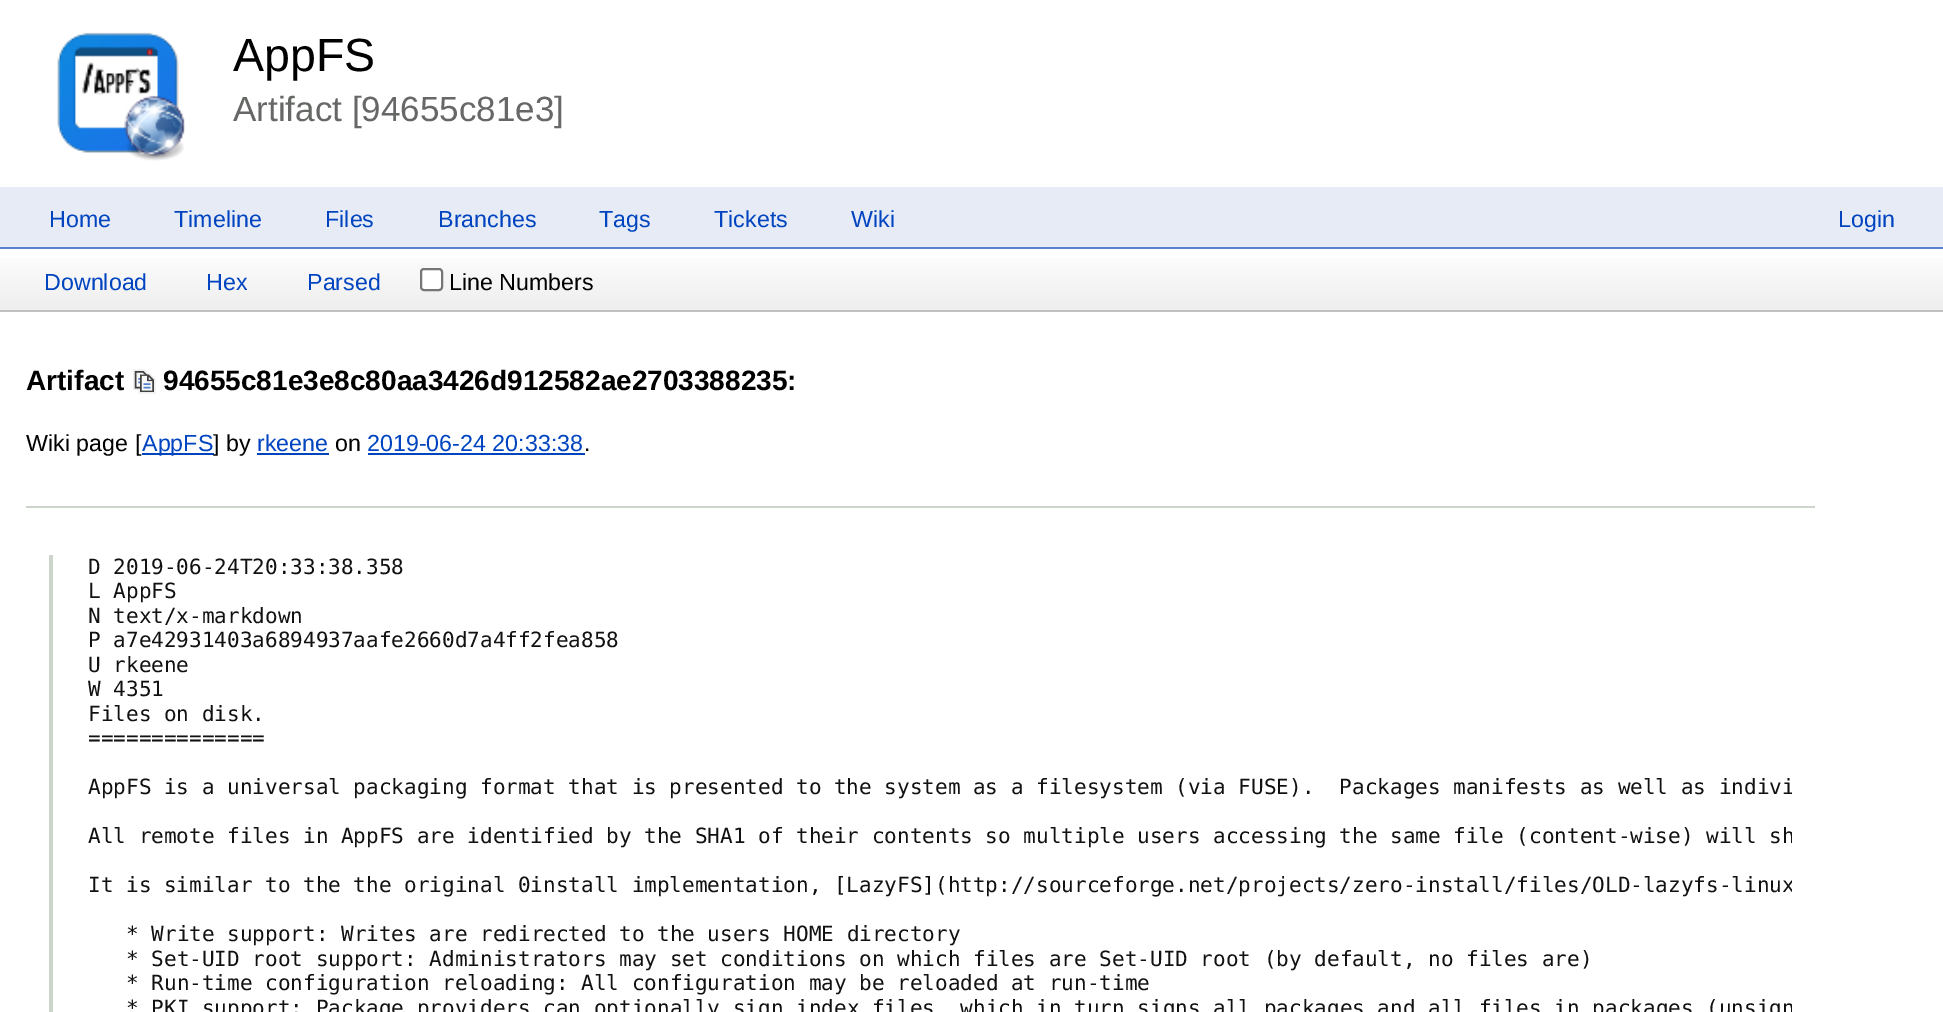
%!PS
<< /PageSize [1943 1012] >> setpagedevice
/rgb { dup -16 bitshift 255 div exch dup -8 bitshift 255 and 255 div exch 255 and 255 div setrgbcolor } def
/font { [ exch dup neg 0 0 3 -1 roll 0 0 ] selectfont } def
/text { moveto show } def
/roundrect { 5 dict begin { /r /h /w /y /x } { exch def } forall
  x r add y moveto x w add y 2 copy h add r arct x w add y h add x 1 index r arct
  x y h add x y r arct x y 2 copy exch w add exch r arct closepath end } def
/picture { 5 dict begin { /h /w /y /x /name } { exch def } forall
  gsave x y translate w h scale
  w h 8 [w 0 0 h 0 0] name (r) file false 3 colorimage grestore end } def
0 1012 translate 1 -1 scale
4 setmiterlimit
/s1 { /LiberationSans-Regular 46.5 font 16#000000 rgb } def
/s2 { /LiberationSans-Regular 35 font 16#666866 rgb } def
/s3 { /LiberationSans-Regular 23.25 font 16#0044C0 rgb } def
/s4 { /LiberationSans-Regular 23.25 font 16#000000 rgb } def
/s5 { /LiberationSans-Bold 28 font 16#000000 rgb } def
/s6 { /DejaVuSansMono-Regular 21 font 16#111111 rgb } def
16#FFFFFF rgb
0 0 1943 1012 rectfill
(pic1.raw) 57 32 128 129 picture
s1
(AppFS) 233 71 text
s2
(Artifact [94655c81e3]) 233 121 text
16#E6EBF6 rgb
0 187 1943 60 rectfill
16#5980CC rgb
0 247 1943 2 rectfill
s3
(Home) 49 227 text
(Timeline) 174 227 text
(Files) 325 227 text
(Branches) 438 227 text
(Tags) 599 227 text
(Tickets) 714 227 text
(Wiki) 851 227 text
(Login) 1838 227 text
gsave 0 258 moveto 1943 258 lineto 1943 310 lineto 0 310 lineto closepath clip newpath
<< /ShadingType 2 /ColorSpace /DeviceRGB /Coords [0 310 0 249] /Extend [true true] /Function << /FunctionType 2 /Domain [0 1] /C0 [0.933 0.933 0.933] /C1 [1 1 1] /N 1 >> >> shfill grestore
16#C0C0C0 rgb
0 310 1943 2 rectfill
s3
(Download) 44 290 text
(Hex) 206 290 text
(Parsed) 307 290 text
16#FFFFFF rgb
421 269 21 21 3 roundrect gsave fill grestore
16#767676 rgb
2 setlinewidth
stroke
s4
(Line Numbers) 449 290 text
s5
(Artifact) 26 390 text
(pic2.raw) 133 369 23 25 picture
(94655c81e3e8c80aa3426d912582ae2703388235:) 163 390 text
s4
(Wiki page [) 26 451 text
16#0044C0 rgb
142 453 72 2 rectfill
(AppFS) 142 451 text
s4
(] by) 213 451 text
s3
(rkeene) 257 451 text
257 453 72 2 rectfill
s4
(on) 335 451 text
s3
(2019-06-24 20:33:38) 367 451 text
368 453 217 2 rectfill
s4
(.) 584 451 text
16#CCD4CC rgb
26 506 1789 2 rectfill
49 555 4 457 rectfill
s6
(D 2019-06-24T20:33:38.358) 88 574 text
(L AppFS) 88 598 text
(N text/x-markdown) 88 623 text
(P a7e42931403a6894937aafe2660d7a4ff2fea858) 88 647 text
(U rkeene) 88 672 text
(W 4351) 88 696 text
(Files on disk.) 88 721 text
(==============) 88 745 text
gsave
88 555 1704 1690 rectclip
(AppFS is a universal packaging format that is presented to the system as a filesystem \(via FUSE\).  Packages manifests as well as indivi) 88 794 text
(All remote files in AppFS are identified by the SHA1 of their contents so multiple users accessing the same file \(content-wise\) will sh) 88 843 text
(It is similar to the the original 0install implementation, [LazyFS]\(http://sourceforge.net/projects/zero-install/files/OLD-lazyfs-linux) 88 892 text
grestore
(* Write support: Writes are redirected to the users HOME directory) 126 941 text
(* Set-UID root support: Administrators may set conditions on which files are Set-UID root \(by default, no files are\)) 126 966 text
(* Run-time configuration reloading: All configuration may be reloaded at run-time) 126 990 text
gsave
88 555 1704 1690 rectclip
(* PKI support: Package providers can optionally sign index files, which in turn signs all packages and all files in packages \(unsign) 126 1015 text
grestore
showpage
